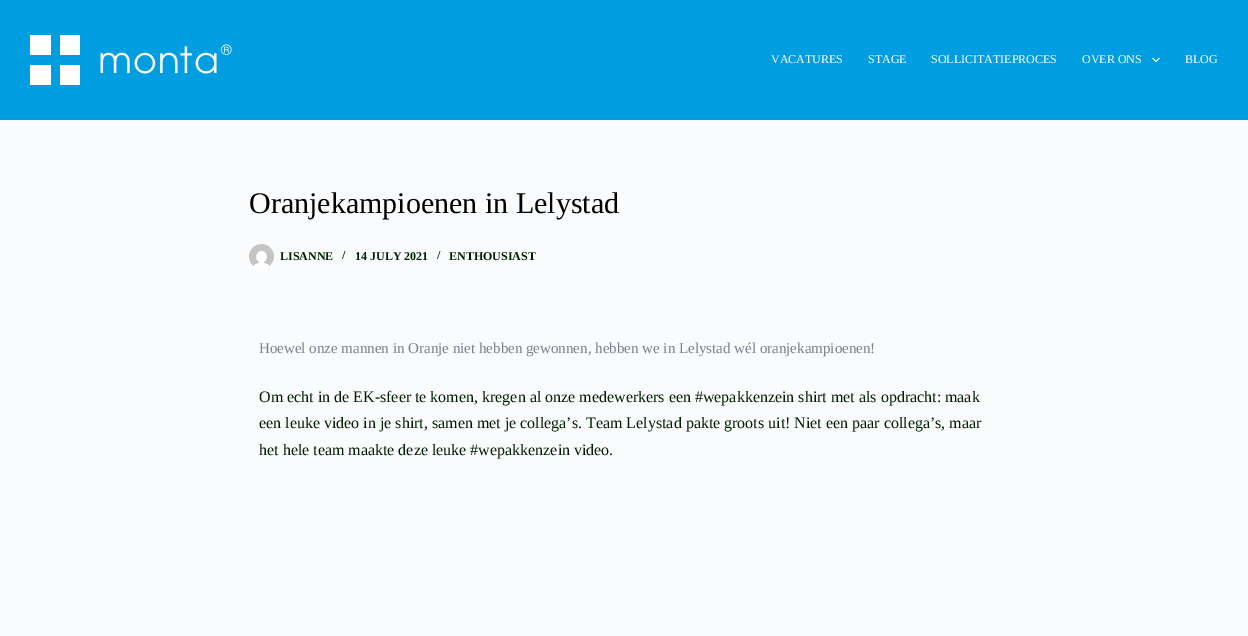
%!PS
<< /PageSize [1248 636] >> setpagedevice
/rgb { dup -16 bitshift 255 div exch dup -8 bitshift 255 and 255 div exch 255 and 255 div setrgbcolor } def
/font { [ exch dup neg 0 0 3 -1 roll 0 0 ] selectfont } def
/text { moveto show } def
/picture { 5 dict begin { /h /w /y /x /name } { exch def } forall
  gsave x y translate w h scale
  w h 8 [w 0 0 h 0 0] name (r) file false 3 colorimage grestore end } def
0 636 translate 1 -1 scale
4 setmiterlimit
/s1 { /LiberationSerif-Regular 12 font 16#FFFFFF rgb } def
/s2 { /LiberationSerif-Regular 30 font 16#000000 rgb } def
/s3 { /LiberationSerif-Bold 12 font 16#001E00 rgb } def
/s4 { /LiberationSerif-Regular 15 font 16#77838F rgb } def
/s5 { /LiberationSerif-Regular 16 font 16#001E00 rgb } def
16#FAFBFC rgb
0 0 1248 636 rectfill
16#009DE0 rgb
0 0 1248 120 rectfill
(pic1.raw) 30 35 202 50 picture
s1
(VACATURES) 771 63 text
(STAGE) 868 63 text
(SOLLICITATIEPROCES) 931 63 text
(OVER ONS) 1082 63 text
(pic2.raw) 1152 57 8 6 picture
(BLOG) 1185 63 text
s2
(Oranjekampioenen in Lelystad) 249 213 text
(pic3.raw) 249 244 25 25 picture
s3
(LISANNE) 280 260 text
(/) 342 259 text
(14 JULY 2021) 355 260 text
(/) 437 259 text
(ENTHOUSIAST) 449 260 text
s4
(Hoewel onze mannen in Oranje niet hebben gewonnen, hebben we in Lelystad wél oranjekampioenen!) 259 353 text
s5
(Om echt in de EK-sfeer te komen, kregen al onze medewerkers een #wepakkenzein shirt met als opdracht: maak) 259 402 text
(een leuke video in je shirt, samen met je collega’s. Team Lelystad pakte groots uit! Niet een paar collega’s, maar) 259 428 text
(het hele team maakte deze leuke #wepakkenzein video.) 259 455 text
showpage
